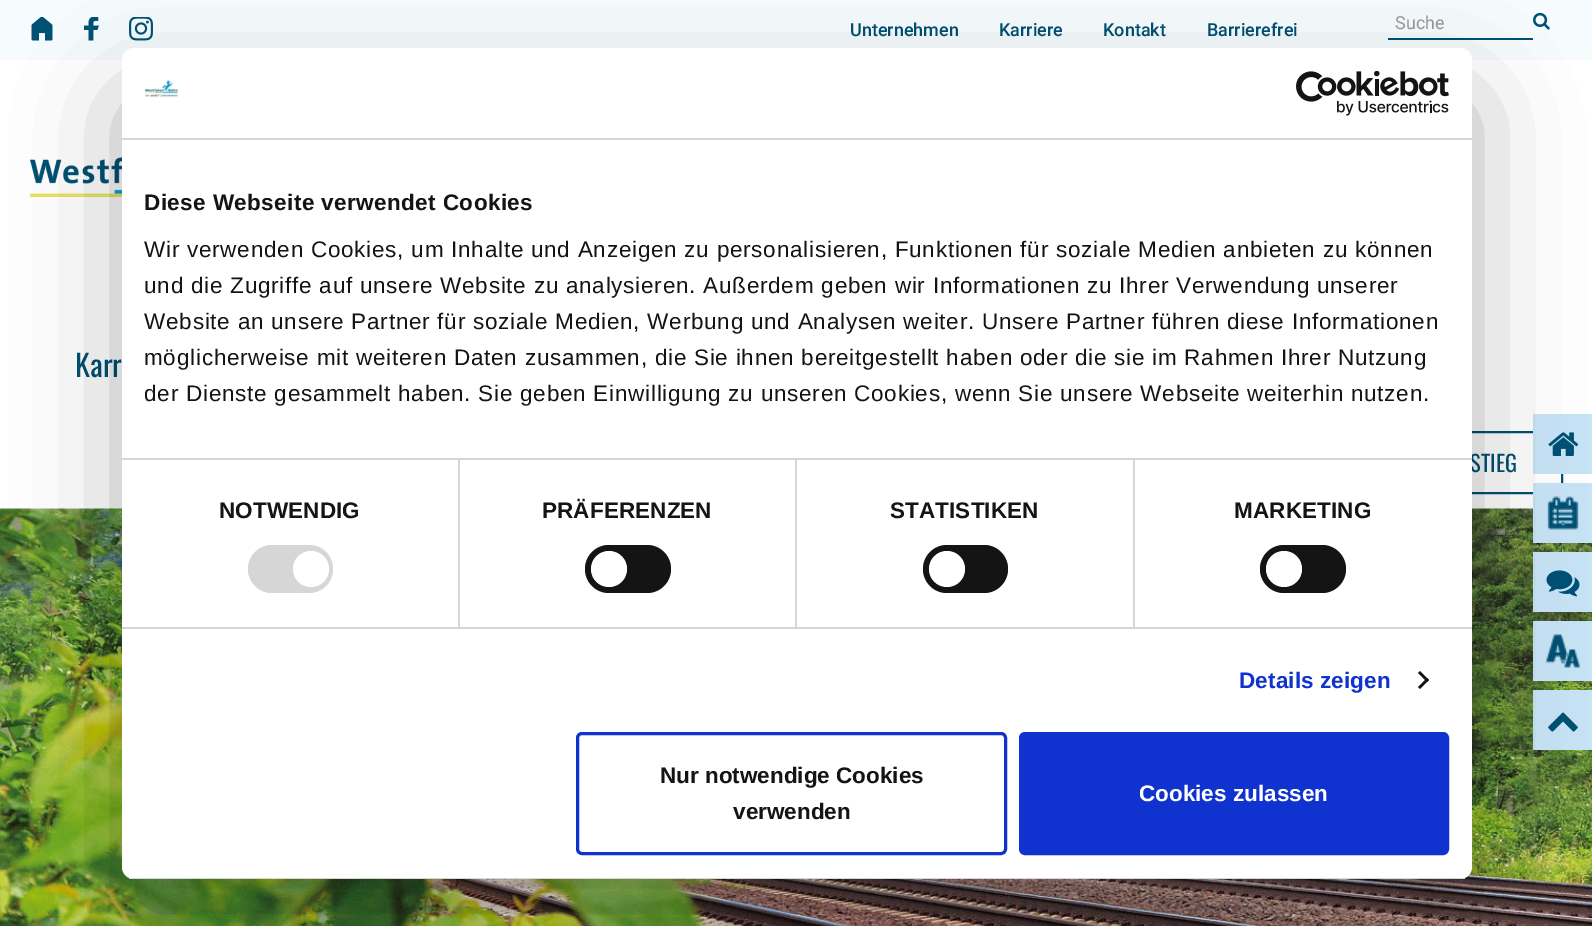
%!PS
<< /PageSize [1592 926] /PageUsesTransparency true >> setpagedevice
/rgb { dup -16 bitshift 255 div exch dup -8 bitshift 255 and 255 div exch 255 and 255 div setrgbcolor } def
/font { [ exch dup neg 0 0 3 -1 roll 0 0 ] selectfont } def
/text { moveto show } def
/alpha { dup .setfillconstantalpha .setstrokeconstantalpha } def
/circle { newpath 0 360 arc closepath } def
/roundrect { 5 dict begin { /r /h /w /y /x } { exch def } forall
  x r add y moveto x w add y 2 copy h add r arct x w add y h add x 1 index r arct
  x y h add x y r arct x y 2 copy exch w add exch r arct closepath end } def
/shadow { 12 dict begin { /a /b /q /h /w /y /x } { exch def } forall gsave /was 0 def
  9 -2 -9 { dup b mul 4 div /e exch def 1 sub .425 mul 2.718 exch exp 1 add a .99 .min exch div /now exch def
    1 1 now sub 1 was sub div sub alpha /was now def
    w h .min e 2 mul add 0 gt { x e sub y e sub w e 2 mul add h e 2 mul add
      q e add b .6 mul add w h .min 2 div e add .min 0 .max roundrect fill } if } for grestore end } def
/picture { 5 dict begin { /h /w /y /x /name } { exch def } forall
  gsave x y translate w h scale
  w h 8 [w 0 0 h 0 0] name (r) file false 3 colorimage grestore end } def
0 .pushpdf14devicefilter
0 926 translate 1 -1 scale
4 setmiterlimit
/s1 { /Roboto-Medium 18 font 16#005174 rgb } def
/s2 { /Roboto-Regular 18 font 16#999999 rgb } def
/s3 { /Oswald-Regular 30 font 16#005174 rgb } def
/s4 { /Oswald-Regular 22.5 font 16#005174 rgb } def
/s5 { /LiberationSerif-Regular 33 font 16#4B88A5 rgb } def
/s6 { /LiberationSerif-Regular 33 font 16#6399B4 rgb } def
/s7 { /LiberationSans-Bold 22.5 font 16#141414 rgb } def
/s8 { /LiberationSans-Bold 22.5 font 16#FFFFFF rgb } def
16#FFFFFF rgb
0 0 1592 926 rectfill
16#F6FBFE rgb
0 0 1592 60 rectfill
(pic1.raw) 31 17 22 24 picture
(pic2.raw) 84 17 15 24 picture
(pic3.raw) 129 17 24 24 picture
s1
(Unternehmen) 850 36 text
(Karriere) 999 36 text
(Kontakt) 1103 36 text
(Barrierefrei) 1207 36 text
1388 38 145 2 rectfill
s2
(Suche) 1395 29 text
(pic4.raw) 1533 12 17 18 picture
(pic5.raw) 30 157 92 40 picture
s3
(Karr) 75 377 text
2 setlinewidth
1324 432 238 61 rectstroke
s4
(STIEG) 1470 472 text
(pic6.raw) 0 508 1592 418 picture
16#C7E4F6 rgb
1533 414 59 60 rectfill
(pic7.raw) 1548 432 31 24 picture
1533 483 59 60 rectfill
(pic8.raw) 1547 496 32 34 picture
s5
(.) 1559 525 text
16#C7E4F6 rgb
1533 552 59 60 rectfill
(pic9.raw) 1546 570 34 27 picture
1533 621 59 60 rectfill
(pic10.raw) 1545 634 36 34 picture
s6
(.) 1559 663 text
16#C7E4F6 rgb
1533 690 59 60 rectfill
(pic11.raw) 1548 712 30 20 picture
16#000000 rgb
122 96 1350 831 12 51 0.3 shadow
16#FFFFFF rgb
122 48 1350 831 12 roundrect fill
16#D6D6D6 rgb
122 138 1350 2 rectfill
(pic12.raw) 144 80 35 17 picture
(pic13.raw) 1296 71 153 45 picture
458 459 2 168 rectfill
795 459 2 168 rectfill
1133 459 2 168 rectfill
122 458 1350 2 rectfill
/LiberationSans-Bold 22.5 font
16#141414 rgb
144 210 moveto 0.4 0 (Diese Webseite verwendet Cookies) ashow
/LiberationSans-Regular 22.5 font
144 257 moveto 0.75 0 (Wir verwenden Cookies, um Inhalte und Anzeigen zu personalisieren, Funktionen für soziale Medien anbieten zu können) ashow
144 293 moveto 0.75 0 (und die Zugriffe auf unsere Website zu analysieren. Außerdem geben wir Informationen zu Ihrer Verwendung unserer) ashow
144 329 moveto 0.75 0 (Website an unsere Partner für soziale Medien, Werbung und Analysen weiter. Unsere Partner führen diese Informationen) ashow
144 365 moveto 0.75 0 (möglicherweise mit weiteren Daten zusammen, die Sie ihnen bereitgestellt haben oder die sie im Rahmen Ihrer Nutzung) ashow
144 401 moveto 0.75 0 (der Dienste gesammelt haben. Sie geben Einwilligung zu unseren Cookies, wenn Sie unsere Webseite weiterhin nutzen.) ashow
16#D6D6D6 rgb
122 627 1350 2 rectfill
/LiberationSans-Bold 22.5 font
16#141414 rgb
219 518 moveto 0.1 0 (NOTWENDIG) ashow
16#D6D6D6 rgb
248 545 85 48 24 roundrect fill
16#FFFFFF rgb
311 569 18 circle fill
16#141414 rgb
542 518 moveto 0.1 0 (PRÄFERENZEN) ashow
585 545 86 48 24 roundrect fill
16#FFFFFF rgb
609 569 18 circle fill
16#141414 rgb
890 518 moveto 0.1 0 (STATISTIKEN) ashow
923 545 85 48 24 roundrect fill
16#FFFFFF rgb
947 569 18 circle fill
16#141414 rgb
1234 518 moveto 0.1 0 (MARKETING) ashow
1260 545 86 48 24 roundrect fill
16#FFFFFF rgb
1284 569 18 circle fill
16#1032CF rgb
1239 688 moveto 0.1 0 (Details zeigen) ashow
16#141414 rgb
1420 671 moveto 1429 680 lineto 1427 682 lineto 1418 673 lineto closepath fill
1427 678 moveto 1429 680 lineto 1420 689 lineto 1418 687 lineto closepath fill
gsave
122 48 1350 831 12 roundrect clip newpath
16#D6D6D6 rgb
122 878 1350 1 rectfill
grestore
16#1032CF rgb
3 setlinewidth
577.5 733.5 428 120 4.5 roundrect stroke
s7
(Nur notwendige Cookies) 660 783 text
(verwenden) 733 819 text
16#1032CF rgb
1020.5 733.5 427 120 4.5 roundrect gsave fill grestore
stroke
s8
(Cookies zulassen) 1139 801 text
.poppdf14devicefilter showpage
